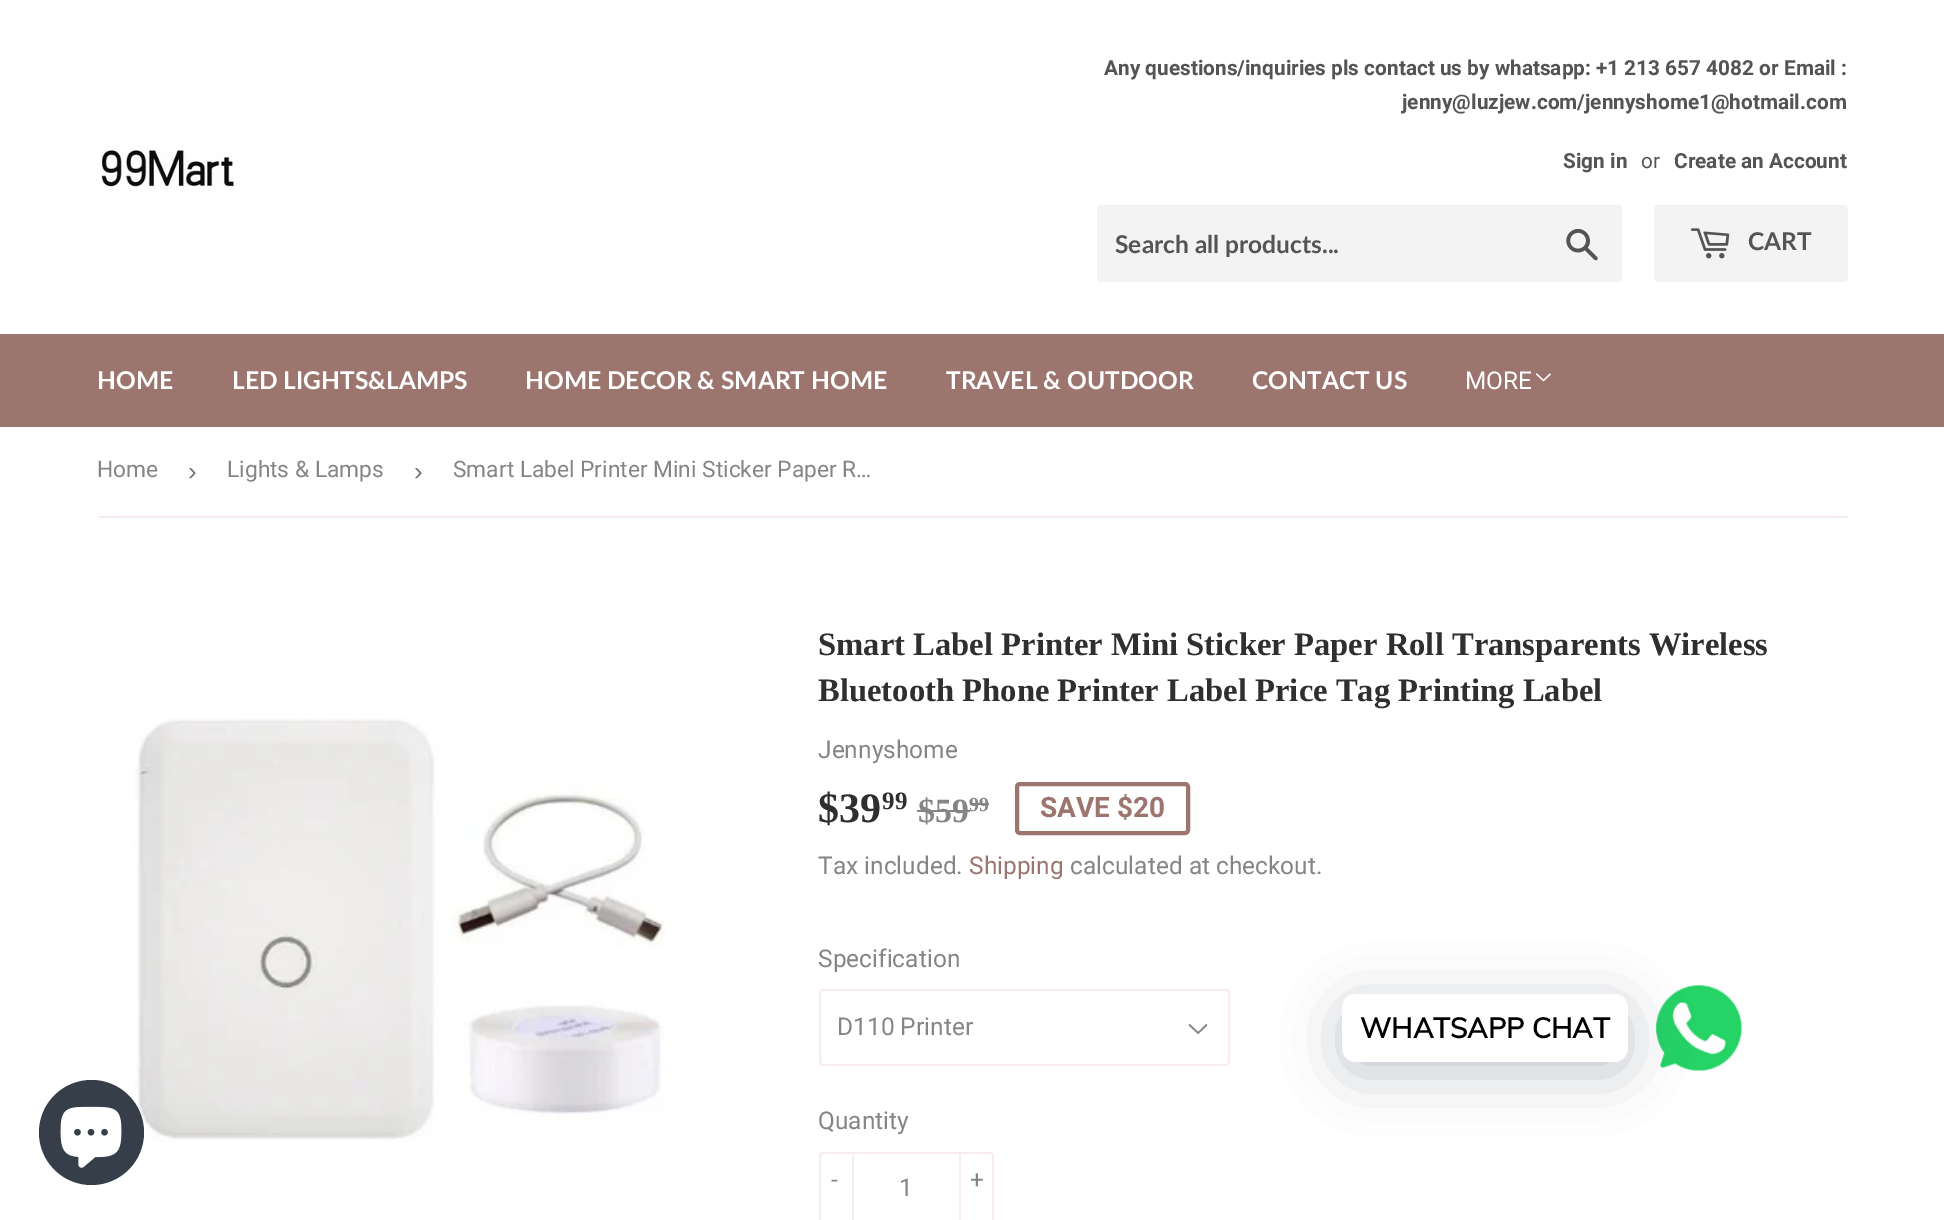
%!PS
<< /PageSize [1944 1220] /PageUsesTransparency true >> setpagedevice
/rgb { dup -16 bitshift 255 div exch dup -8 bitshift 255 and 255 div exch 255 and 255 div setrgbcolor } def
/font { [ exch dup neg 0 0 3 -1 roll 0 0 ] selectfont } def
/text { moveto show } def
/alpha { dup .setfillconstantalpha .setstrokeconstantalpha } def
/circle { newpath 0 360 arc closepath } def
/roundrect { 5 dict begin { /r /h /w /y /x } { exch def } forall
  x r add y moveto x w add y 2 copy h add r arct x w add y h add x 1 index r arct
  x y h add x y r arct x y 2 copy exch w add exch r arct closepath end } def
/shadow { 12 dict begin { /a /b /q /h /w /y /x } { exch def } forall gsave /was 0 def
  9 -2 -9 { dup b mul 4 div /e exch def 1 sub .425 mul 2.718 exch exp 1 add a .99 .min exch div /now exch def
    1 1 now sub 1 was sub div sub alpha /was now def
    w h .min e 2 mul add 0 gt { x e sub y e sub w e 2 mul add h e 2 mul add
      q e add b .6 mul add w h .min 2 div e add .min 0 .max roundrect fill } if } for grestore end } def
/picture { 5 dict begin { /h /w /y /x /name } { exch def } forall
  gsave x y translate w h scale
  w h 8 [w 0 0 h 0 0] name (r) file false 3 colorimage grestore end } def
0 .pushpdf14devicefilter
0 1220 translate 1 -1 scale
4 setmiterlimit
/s1 { /Roboto-Bold 20.8 font 16#545454 rgb } def
/s2 { /Roboto-Regular 20.8 font 16#545454 rgb } def
/s3 { /Lato-Bold 24.5 font 16#545454 rgb } def
/s4 { /Lato-Bold 24.5 font 16#FFFFFF rgb } def
/s5 { /Roboto-Regular 24.5 font 16#FFFFFF rgb } def
/s6 { /Roboto-Regular 22.75 font 16#858585 rgb } def
/s7 { /LiberationSans-Regular 26 font 16#767676 rgb } def
/s8 { /LiberationSerif-Bold 32.65 font 16#2F2F2F rgb } def
/s9 { /Roboto-Regular 24.5 font 16#858585 rgb } def
/s10 { /LiberationSerif-Bold 42 font 16#2F2F2F rgb } def
/s11 { /LiberationSerif-Bold 25 font 16#2F2F2F rgb } def
/s12 { /LiberationSerif-Bold 34 font 16#858585 rgb } def
/s13 { /LiberationSerif-Bold 20 font 16#858585 rgb } def
/s14 { /Roboto-Bold 28 font 16#9C756F rgb } def
/s15 { /Roboto-Regular 24.5 font 16#9C756F rgb } def
/s16 { /Muli-Bold 28 font 16#000000 rgb } def
16#FFFFFF rgb
0 0 1944 1220 rectfill
(pic1.raw) 101 149 134 38 picture
s1
(Any questions/inquiries pls contact us by whatsapp:) 1104 75 text
(+1 213 657 4082 or Email :) 1596 75 text
(jenny@luzjew.com/jennyshome1@hotmail.com) 1402 109 text
(Sign in) 1563 168 text
s2
(or) 1641 168 text
s1
(Create an Account) 1674 168 text
16#F3F3F3 rgb
1097 205 525 77 4 roundrect fill
s3
(Search all products...) 1115 253 text
(pic2.raw) 1566 228 32 33 picture
16#F3F3F3 rgb
1654 205 194 77 4 roundrect fill
(pic3.raw) 1690 228 40 31 picture
s3
(CART) 1748 250 text
16#9C756F rgb
0 334 1944 93 rectfill
s4
(HOME) 97 389 text
(LED LIGHTS&LAMPS) 232 389 text
(HOME DECOR & SMART HOME) 525 389 text
(TRAVEL & OUTDOOR) 946 389 text
(CONTACT US) 1252 389 text
s5
(MORE) 1465 389 text
(pic4.raw) 1536 373 15 9 picture
16#F9ECEC rgb
98 516 1750 2 rectfill
s6
(Home) 97 477 text
s7
(›) 188 480 text
s6
(Lights & Lamps) 227 477 text
s7
(›) 414 480 text
s6
(Smart Label Printer Mini Sticker Paper R…) 453 477 text
(pic5.raw) 134 718 531 424 picture
s8
(Smart Label Printer Mini Sticker Paper Roll Transparents Wireless) 818 655 text
(Bluetooth Phone Printer Label Price Tag Printing Label) 818 701 text
s9
(Jennyshome) 818 758 text
s10
($39) 818 822 text
s11
(99) 882 809 text
s12
($59) 918 822 text
917 810 53 2 rectfill
s13
(99) 969 811 text
970 803 19 2 rectfill
16#9C756F rgb
4 setlinewidth
1017 784 171 49 3 roundrect stroke
s14
(SAVE $20) 1040 817 text
s9
(Tax included.) 818 874 text
s15
(Shipping) 969 874 text
s9
(calculated at checkout.) 1070 874 text
(Specification) 818 967 text
(pic6.raw) 1188 1024 20 11 picture
16#F9ECEC rgb
2 setlinewidth
820 990 409 75 3 roundrect stroke
s9
(D110 Printer) 837 1035 text
(Quantity) 818 1129 text
16#F9ECEC rgb
820 1153 173 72 3 roundrect stroke
852 1152 2 68 rectfill
s9
(-) 831 1188 text
(1) 899 1196 text
16#F9ECEC rgb
959 1152 2 68 rectfill
s9
(+) 970 1188 text
(pic7.raw) 1655 984 88 87 picture
16#00122E rgb
1342 1005 286 68 14 28 0.24 shadow
16#FFFFFF rgb
1342 994 286 68 14 roundrect fill
s16
(WHATSAPP CHAT) 1360 1038 text
16#353E49 rgb
91.5 1132.5 52.5 circle fill
(pic8.raw) 60 1106 62 62 picture
.poppdf14devicefilter showpage
